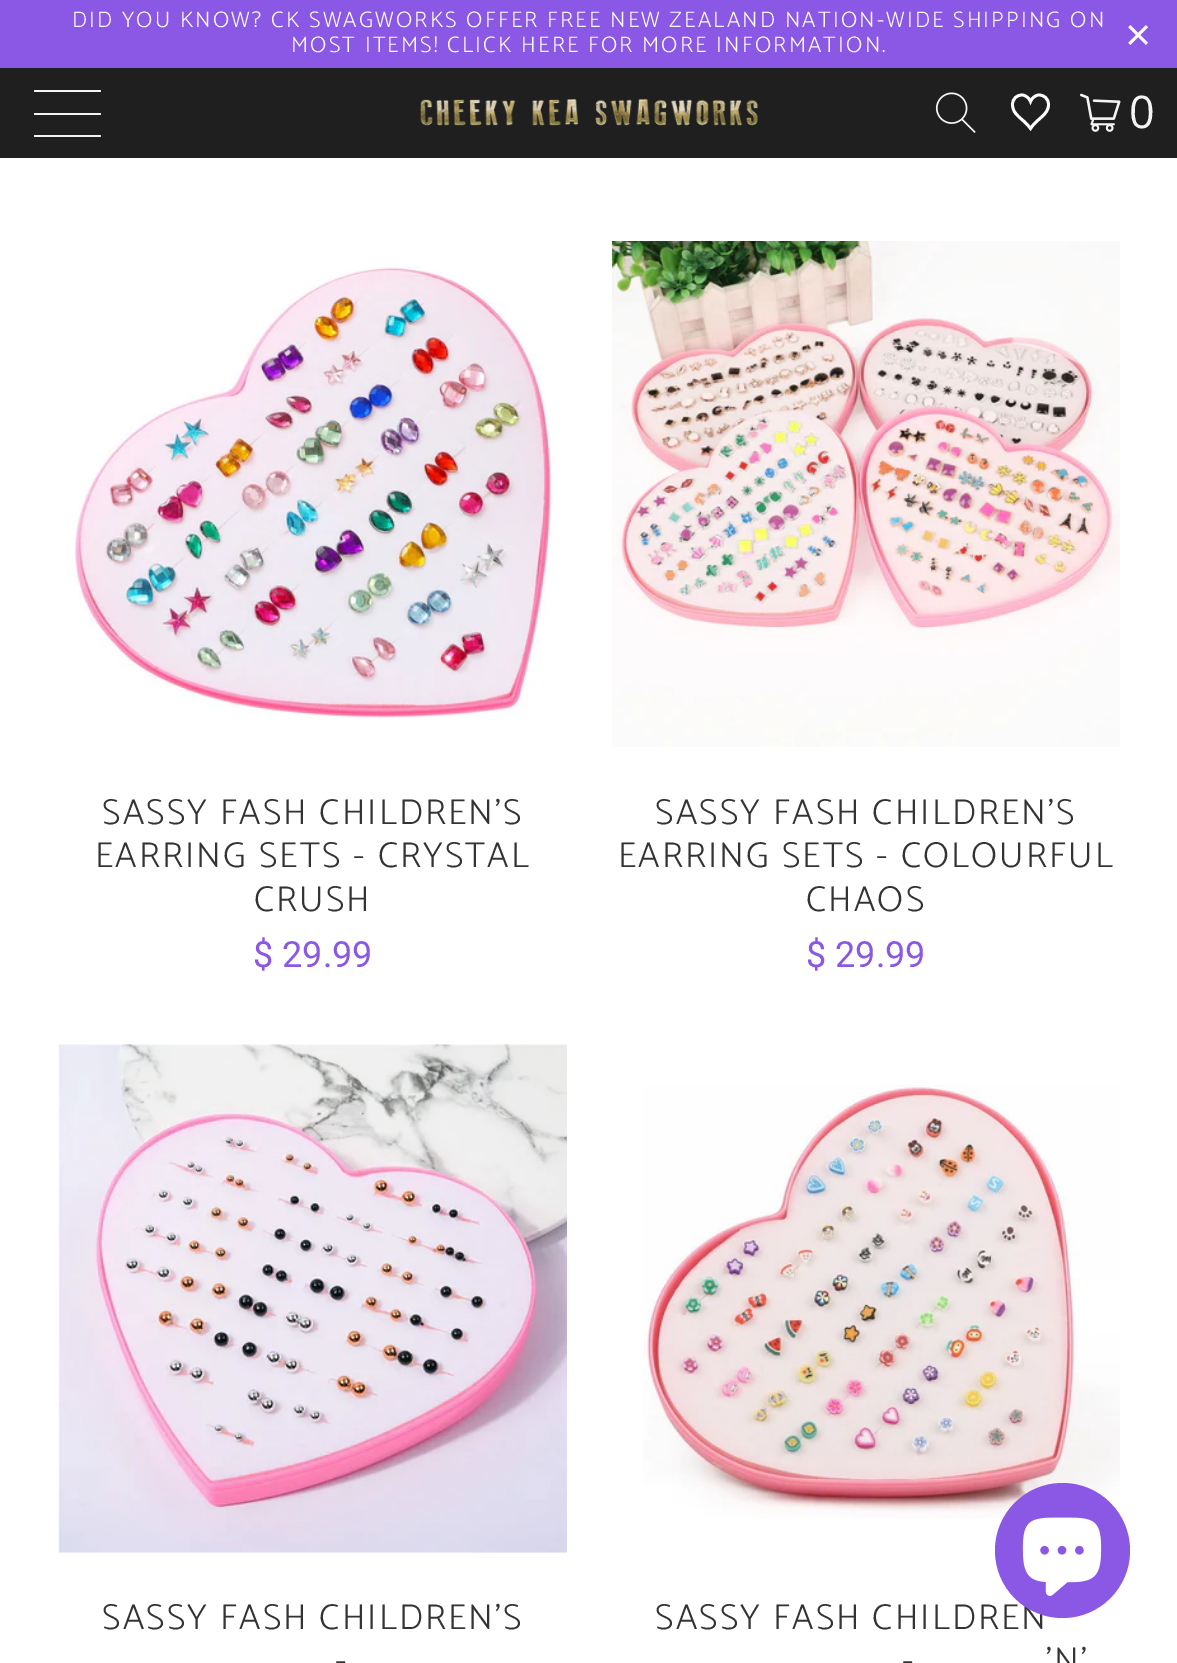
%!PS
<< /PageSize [1177 1663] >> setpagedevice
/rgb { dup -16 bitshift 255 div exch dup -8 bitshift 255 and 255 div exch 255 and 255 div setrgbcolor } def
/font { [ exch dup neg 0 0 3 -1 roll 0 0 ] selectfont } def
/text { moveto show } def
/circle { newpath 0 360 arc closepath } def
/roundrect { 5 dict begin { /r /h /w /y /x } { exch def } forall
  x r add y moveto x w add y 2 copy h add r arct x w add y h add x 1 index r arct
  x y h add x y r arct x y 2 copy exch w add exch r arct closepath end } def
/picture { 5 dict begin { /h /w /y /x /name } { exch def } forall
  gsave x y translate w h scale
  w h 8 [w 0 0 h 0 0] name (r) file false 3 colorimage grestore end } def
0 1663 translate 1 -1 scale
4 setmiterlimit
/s1 { /Roboto-Regular 36 font 16#8B57E5 rgb } def
16#FFFFFF rgb
0 0 1177 1663 rectfill
16#8B57E5 rgb
0 0 1177 68 rectfill
/Catamaran-Light 22.5 font
16#FFFFFF rgb
72 27 moveto 2.25 0 (DID YOU KNOW? CK SWAGWORKS OFFER FREE NEW ZEALAND NATION-WIDE SHIPPING ON) ashow
291 52 moveto 2.25 0 (MOST ITEMS! CLICK HERE FOR MORE INFORMATION.) ashow
/LiberationSans-Regular 45 font
1125 50 moveto 2.25 0 (×) ashow
16#1F1F1F rgb
0 68 1177 90 rectfill
16#F4F4F4 rgb
34 90 67 2 1 roundrect fill
34 113 67 2 1 roundrect fill
34 135 67 2 1 roundrect fill
(pic1.raw) 420 98 338 28 picture
(pic2.raw) 935 92 41 41 picture
16#FFFFFF rgb
2.8 setlinewidth
1039 95 moveto 1035.5 95 1032 98 1030.5 101.5 curveto 1029 98 1025.5 95 1022 95 curveto 1016.5 95 1012.5 99 1012.5 104.5 curveto 1012.5 115.5 1023 118 1030.5 128.5 curveto 1037.5 118 1048.5 115 1048.5 104.5 curveto 1048.5 99 1044.5 95 1039 95 curveto closepath stroke
(pic3.raw) 1080 93 41 39 picture
/OpenSans-Regular 45 font
16#F4F4F4 rgb
1129 128 moveto 2.25 0 (0) ashow
(pic4.raw) 73 266 481 452 picture
/Catamaran-Light 36 font
16#333333 rgb
102 824 moveto 2.25 0 (SASSY FASH CHILDREN'S) ashow
95 867 moveto 2.25 0 (EARRING SETS - CRYSTAL) ashow
254 911 moveto 2.25 0 (CRUSH) ashow
s1
($ 29.99) 253 967 text
(pic5.raw) 612 241 508 506 picture
/Catamaran-Light 36 font
16#333333 rgb
655 824 moveto 2.25 0 (SASSY FASH CHILDREN'S) ashow
618 867 moveto 2.25 0 (EARRING SETS - COLOURFUL) ashow
806 911 moveto 2.25 0 (CHAOS) ashow
s1
($ 29.99) 806 967 text
(pic6.raw) 58 1044 509 509 picture
/Catamaran-Light 36 font
16#333333 rgb
102 1629 moveto 2.25 0 (SASSY FASH CHILDREN'S) ashow
335 1672 moveto 2.25 0 (-) ashow
(pic7.raw) 643 1085 477 433 picture
655 1629 moveto 2.25 0 (SASSY FASH CHILDREN) ashow
902 1672 moveto 2.25 0 (-) ashow
1046 1672 moveto 2.25 0 ('N') ashow
16#8B57E5 rgb
1062.5 1550.5 67.5 circle fill
(pic8.raw) 1022 1517 80 79 picture
showpage
